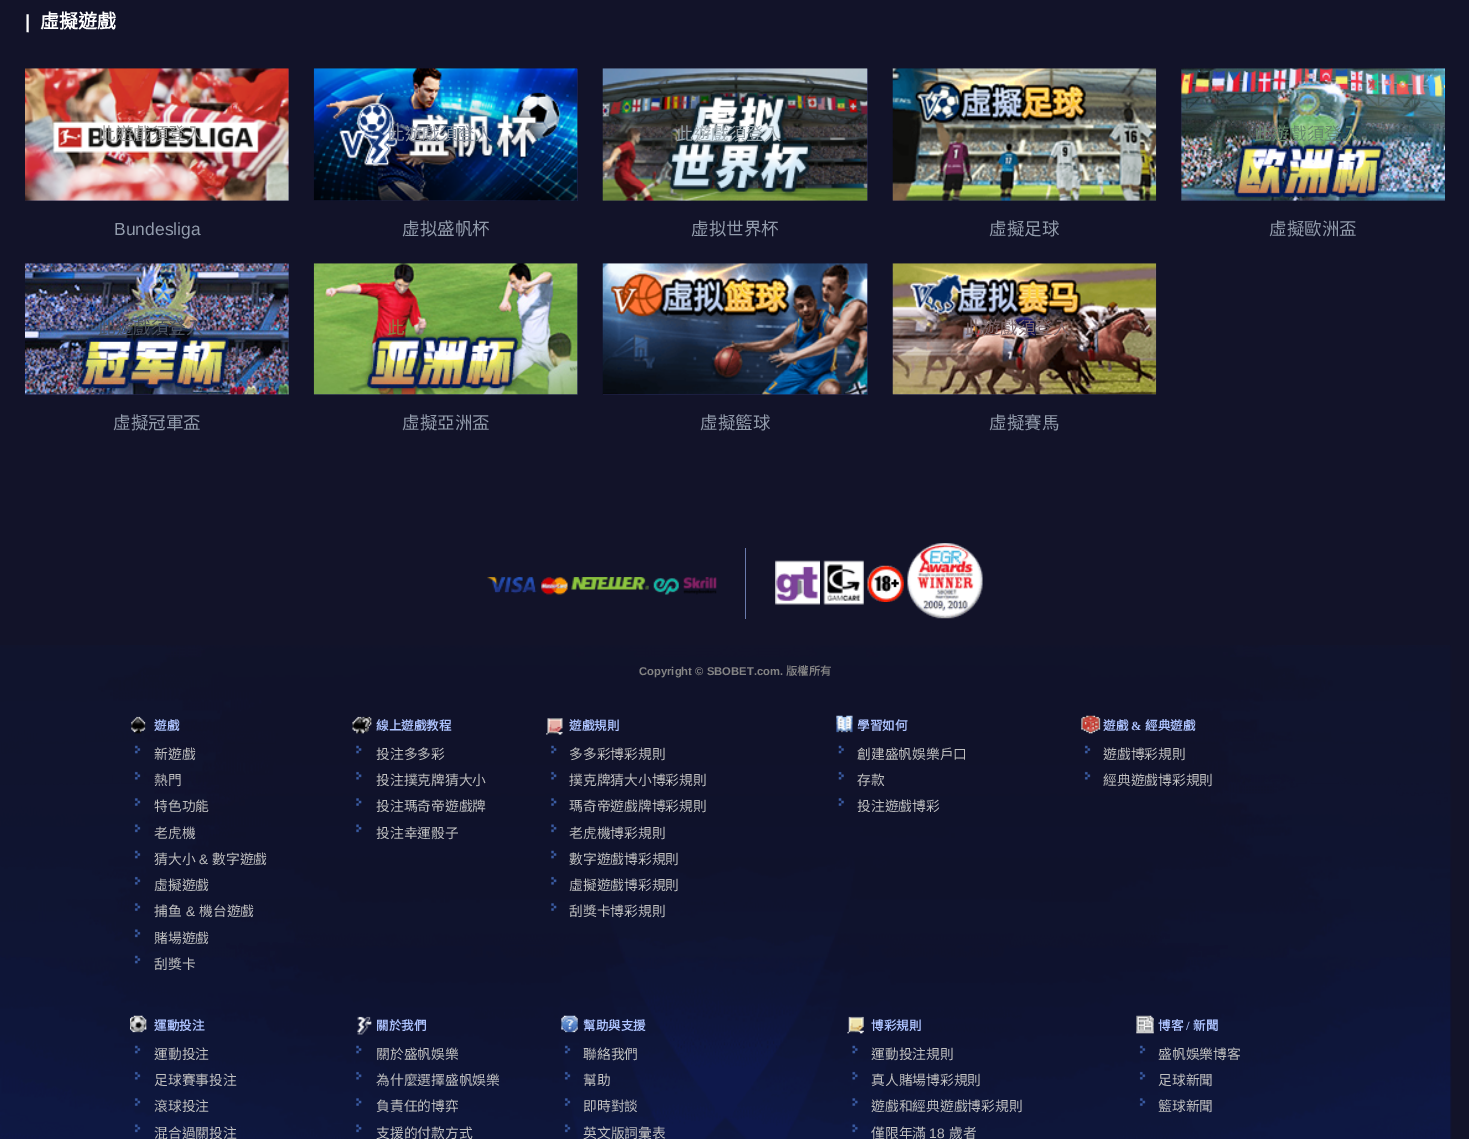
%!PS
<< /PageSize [1469 1139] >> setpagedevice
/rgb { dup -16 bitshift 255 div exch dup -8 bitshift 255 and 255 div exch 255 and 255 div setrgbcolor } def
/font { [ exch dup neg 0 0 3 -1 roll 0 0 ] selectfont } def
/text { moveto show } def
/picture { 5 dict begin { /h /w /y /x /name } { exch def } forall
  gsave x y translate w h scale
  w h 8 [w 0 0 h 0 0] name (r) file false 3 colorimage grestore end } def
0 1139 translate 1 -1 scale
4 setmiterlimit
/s1 { /LiberationSans-Bold 19 font 16#FFFFFF rgb } def
/s2 { /NotoSansCJKTC-Bold 19 font 16#FFFFFF rgb } def
/s3 { /NotoSansCJKTC-Regular 17.5 font 16#919190 rgb } def
/s4 { /LiberationSans-Regular 17.5 font 16#929CAC rgb } def
/s5 { /NotoSansCJKTC-Regular 17.5 font 16#8991A0 rgb } def
/s6 { /NotoSansCJKTC-Regular 17.5 font 16#929CAC rgb } def
/s7 { /NotoSansCJKTC-Regular 17.5 font 16#9BA6AC rgb } def
/s8 { /NotoSansCJKTC-Regular 17.5 font 16#688A6E rgb } def
/s9 { /NotoSansCJKTC-Regular 17.5 font 16#4A5260 rgb } def
/s10 { /NotoSansCJKTC-Regular 17.5 font 16#848844 rgb } def
/s11 { /NotoSansCJKTC-Regular 17.5 font 16#7C676B rgb } def
/s12 { /LiberationSans-Bold 11.25 font 16#848484 rgb } def
/s13 { /NotoSansCJKTC-Bold 11.25 font 16#848484 rgb } def
/s14 { /NotoSansCJKTC-Bold 12.5 font 16#ADC3FF rgb } def
/s15 { /NotoSansCJKTC-Regular 13.75 font 16#C0C0C0 rgb } def
/s16 { /LiberationSans-Regular 13.75 font 16#C0C0C0 rgb } def
/s17 { /LiberationSerif-Bold 12.5 font 16#ADC3FF rgb } def
16#121329 rgb
0 0 1469 1139 rectfill
(pic1.raw) 0 645 1452 494 picture
s1
(|) 25 28 text
s2
(虛擬遊戲) 40 28 text
gsave 25 69 moveto 289 69 lineto 289 201 lineto 25 201 lineto closepath clip newpath
<< /ShadingType 2 /ColorSpace /DeviceRGB /Coords [25 135 775 135] /Extend [true true] /Function << /FunctionType 3 /Domain [0 1] /Functions [<< /FunctionType 2 /Domain [0 1] /C0 [0.125 0.133 0.29] /C1 [0.133 0.145 0.322] /N 1 >> << /FunctionType 2 /Domain [0 1] /C0 [0.133 0.145 0.322] /C1 [0.125 0.133 0.29] /N 1 >> << /FunctionType 2 /Domain [0 1] /C0 [0.125 0.133 0.29] /C1 [0.125 0.133 0.29] /N 1 >>] /Bounds [0.07 0.13] /Encode [0 1 0 1 0 1] >> >> shfill grestore
(pic2.raw) 25 68 264 133 picture
s3
(此遊戲須登入) 98 140 text
s4
(Bundesliga) 114 235 text
gsave 314 69 moveto 578 69 lineto 578 201 lineto 314 201 lineto closepath clip newpath
<< /ShadingType 2 /ColorSpace /DeviceRGB /Coords [314 135 1064 135] /Extend [true true] /Function << /FunctionType 3 /Domain [0 1] /Functions [<< /FunctionType 2 /Domain [0 1] /C0 [0.125 0.133 0.29] /C1 [0.133 0.145 0.322] /N 1 >> << /FunctionType 2 /Domain [0 1] /C0 [0.133 0.145 0.322] /C1 [0.125 0.133 0.29] /N 1 >> << /FunctionType 2 /Domain [0 1] /C0 [0.125 0.133 0.29] /C1 [0.125 0.133 0.29] /N 1 >>] /Bounds [0.07 0.13] /Encode [0 1 0 1 0 1] >> >> shfill grestore
(pic3.raw) 313 68 265 133 picture
s5
(此遊戲須登入) 387 140 text
s6
(虚拟盛帆杯) 402 235 text
gsave 603 69 moveto 868 69 lineto 868 201 lineto 603 201 lineto closepath clip newpath
<< /ShadingType 2 /ColorSpace /DeviceRGB /Coords [603 135 1353 135] /Extend [true true] /Function << /FunctionType 3 /Domain [0 1] /Functions [<< /FunctionType 2 /Domain [0 1] /C0 [0.125 0.133 0.29] /C1 [0.133 0.145 0.322] /N 1 >> << /FunctionType 2 /Domain [0 1] /C0 [0.133 0.145 0.322] /C1 [0.125 0.133 0.29] /N 1 >> << /FunctionType 2 /Domain [0 1] /C0 [0.125 0.133 0.29] /C1 [0.125 0.133 0.29] /N 1 >>] /Bounds [0.07 0.13] /Encode [0 1 0 1 0 1] >> >> shfill grestore
(pic4.raw) 602 68 266 133 picture
s7
(此遊戲須登入) 676 140 text
s6
(虚拟世界杯) 691 235 text
gsave 893 200 moveto 1156 200 lineto 1156 201 lineto 893 201 lineto closepath clip newpath
<< /ShadingType 2 /ColorSpace /DeviceRGB /Coords [893 135 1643 135] /Extend [true true] /Function << /FunctionType 3 /Domain [0 1] /Functions [<< /FunctionType 2 /Domain [0 1] /C0 [0.125 0.133 0.29] /C1 [0.133 0.145 0.322] /N 1 >> << /FunctionType 2 /Domain [0 1] /C0 [0.133 0.145 0.322] /C1 [0.125 0.133 0.29] /N 1 >> << /FunctionType 2 /Domain [0 1] /C0 [0.125 0.133 0.29] /C1 [0.125 0.133 0.29] /N 1 >>] /Bounds [0.07 0.13] /Encode [0 1 0 1 0 1] >> >> shfill grestore
(pic5.raw) 892 68 265 133 picture
(虛擬足球) 989 235 text
gsave 1181 69 moveto 1445 69 lineto 1445 201 lineto 1181 201 lineto closepath clip newpath
<< /ShadingType 2 /ColorSpace /DeviceRGB /Coords [1181 135 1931 135] /Extend [true true] /Function << /FunctionType 3 /Domain [0 1] /Functions [<< /FunctionType 2 /Domain [0 1] /C0 [0.125 0.133 0.29] /C1 [0.133 0.145 0.322] /N 1 >> << /FunctionType 2 /Domain [0 1] /C0 [0.133 0.145 0.322] /C1 [0.125 0.133 0.29] /N 1 >> << /FunctionType 2 /Domain [0 1] /C0 [0.125 0.133 0.29] /C1 [0.125 0.133 0.29] /N 1 >>] /Bounds [0.07 0.13] /Encode [0 1 0 1 0 1] >> >> shfill grestore
(pic6.raw) 1181 68 264 133 picture
s8
(此遊戲須登入) 1254 140 text
s6
(虛擬歐洲盃) 1269 235 text
gsave 25 264 moveto 289 264 lineto 289 395 lineto 25 395 lineto closepath clip newpath
<< /ShadingType 2 /ColorSpace /DeviceRGB /Coords [25 329 775 329] /Extend [true true] /Function << /FunctionType 3 /Domain [0 1] /Functions [<< /FunctionType 2 /Domain [0 1] /C0 [0.125 0.133 0.29] /C1 [0.133 0.145 0.322] /N 1 >> << /FunctionType 2 /Domain [0 1] /C0 [0.133 0.145 0.322] /C1 [0.125 0.133 0.29] /N 1 >> << /FunctionType 2 /Domain [0 1] /C0 [0.125 0.133 0.29] /C1 [0.125 0.133 0.29] /N 1 >>] /Bounds [0.07 0.13] /Encode [0 1 0 1 0 1] >> >> shfill grestore
(pic7.raw) 25 263 264 132 picture
s9
(此遊戲須登入) 98 334 text
s6
(虛擬冠軍盃) 113 429 text
gsave 314 264 moveto 578 264 lineto 578 395 lineto 314 395 lineto closepath clip newpath
<< /ShadingType 2 /ColorSpace /DeviceRGB /Coords [314 329 1064 329] /Extend [true true] /Function << /FunctionType 3 /Domain [0 1] /Functions [<< /FunctionType 2 /Domain [0 1] /C0 [0.125 0.133 0.29] /C1 [0.133 0.145 0.322] /N 1 >> << /FunctionType 2 /Domain [0 1] /C0 [0.133 0.145 0.322] /C1 [0.125 0.133 0.29] /N 1 >> << /FunctionType 2 /Domain [0 1] /C0 [0.125 0.133 0.29] /C1 [0.125 0.133 0.29] /N 1 >>] /Bounds [0.07 0.13] /Encode [0 1 0 1 0 1] >> >> shfill grestore
(pic8.raw) 313 263 265 132 picture
s10
(此) 387 334 text
s6
(虛擬亞洲盃) 402 429 text
gsave 603 264 moveto 868 264 lineto 868 395 lineto 603 395 lineto closepath clip newpath
<< /ShadingType 2 /ColorSpace /DeviceRGB /Coords [603 329 1353 329] /Extend [true true] /Function << /FunctionType 3 /Domain [0 1] /Functions [<< /FunctionType 2 /Domain [0 1] /C0 [0.125 0.133 0.29] /C1 [0.133 0.145 0.322] /N 1 >> << /FunctionType 2 /Domain [0 1] /C0 [0.133 0.145 0.322] /C1 [0.125 0.133 0.29] /N 1 >> << /FunctionType 2 /Domain [0 1] /C0 [0.125 0.133 0.29] /C1 [0.125 0.133 0.29] /N 1 >>] /Bounds [0.07 0.13] /Encode [0 1 0 1 0 1] >> >> shfill grestore
(pic9.raw) 602 263 266 132 picture
(虛擬籃球) 700 429 text
gsave 893 394 moveto 1156 394 lineto 1156 395 lineto 893 395 lineto closepath clip newpath
<< /ShadingType 2 /ColorSpace /DeviceRGB /Coords [893 329 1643 329] /Extend [true true] /Function << /FunctionType 3 /Domain [0 1] /Functions [<< /FunctionType 2 /Domain [0 1] /C0 [0.125 0.133 0.29] /C1 [0.133 0.145 0.322] /N 1 >> << /FunctionType 2 /Domain [0 1] /C0 [0.133 0.145 0.322] /C1 [0.125 0.133 0.29] /N 1 >> << /FunctionType 2 /Domain [0 1] /C0 [0.125 0.133 0.29] /C1 [0.125 0.133 0.29] /N 1 >>] /Bounds [0.07 0.13] /Encode [0 1 0 1 0 1] >> >> shfill grestore
(pic10.raw) 892 263 265 132 picture
s11
(此遊戲須登入) 965 334 text
s6
(虛擬賽馬) 989 429 text
(pic11.raw) 487 577 50 17 picture
(pic12.raw) 541 577 27 18 picture
(pic13.raw) 571 577 78 13 picture
(pic14.raw) 653 578 26 17 picture
(pic15.raw) 683 577 34 18 picture
16#6B7BAD rgb
745 548 1 71 rectfill
(pic16.raw) 775 560 45 45 picture
(pic17.raw) 823 560 41 45 picture
(pic18.raw) 867 565 37 37 picture
(pic19.raw) 907 543 76 76 picture
s12
(Copyright © SBOBET.com.) 639 675 text
s13
(版權所有) 786 675 text
(pic20.raw) 131 716 15 18 picture
s14
(遊戲) 154 730 text
(pic21.raw) 134 745 7 9 picture
s15
(新遊戲) 154 759 text
(pic22.raw) 134 771 7 9 picture
(熱門) 154 785 text
(pic23.raw) 134 798 7 8 picture
(特色功能) 154 811 text
(pic24.raw) 134 824 7 9 picture
(老虎機) 154 838 text
(pic25.raw) 134 850 7 9 picture
(猜大小) 154 864 text
s16
(&) 199 864 text
s15
(數字遊戲) 212 864 text
(pic26.raw) 134 876 7 9 picture
(虛擬遊戲) 154 890 text
(pic27.raw) 134 903 7 8 picture
(捕鱼) 154 916 text
s16
(&) 186 916 text
s15
(機台遊戲) 199 916 text
(pic28.raw) 134 929 7 9 picture
(賭場遊戲) 154 943 text
(pic29.raw) 134 955 7 9 picture
(刮獎卡) 154 969 text
(pic30.raw) 352 716 20 18 picture
s14
(線上遊戲教程) 376 730 text
(pic31.raw) 356 745 6 9 picture
s15
(投注多多彩) 376 759 text
(pic32.raw) 356 771 6 9 picture
(投注撲克牌猜大小) 376 785 text
(pic33.raw) 356 798 6 8 picture
(投注瑪奇帝遊戲牌) 376 811 text
(pic34.raw) 356 824 6 9 picture
(投注幸運骰子) 376 838 text
(pic35.raw) 546 718 17 17 picture
s14
(遊戲規則) 569 730 text
(pic31.raw) 551 745 6 9 picture
s15
(多多彩博彩規則) 569 759 text
(pic32.raw) 551 771 6 9 picture
(撲克牌猜大小博彩規則) 569 785 text
(pic33.raw) 551 798 6 8 picture
(瑪奇帝遊戲牌博彩規則) 569 811 text
(pic36.raw) 551 824 6 9 picture
(老虎機博彩規則) 569 838 text
(pic37.raw) 551 850 6 9 picture
(數字遊戲博彩規則) 569 864 text
(pic38.raw) 551 876 6 9 picture
(虛擬遊戲博彩規則) 569 890 text
(pic39.raw) 551 903 6 8 picture
(刮獎卡博彩規則) 569 916 text
(pic40.raw) 836 715 17 18 picture
s14
(學習如何) 857 730 text
(pic41.raw) 838 745 6 9 picture
s15
(創建盛帆娛樂戶口) 857 759 text
(pic42.raw) 838 771 6 9 picture
(存款) 857 785 text
(pic43.raw) 838 798 6 8 picture
(投注遊戲博彩) 857 811 text
(pic44.raw) 1081 715 20 19 picture
s14
(遊戲) 1103 730 text
s17
(&) 1131 730 text
s14
(經典遊戲) 1145 730 text
(pic45.raw) 1084 745 7 9 picture
s15
(遊戲博彩規則) 1103 759 text
(pic46.raw) 1084 771 7 9 picture
(經典遊戲博彩規則) 1103 785 text
(pic47.raw) 130 1015 17 18 picture
s14
(運動投注) 154 1030 text
(pic48.raw) 134 1045 7 9 picture
s15
(運動投注) 154 1059 text
(pic49.raw) 134 1071 7 9 picture
(足球賽事投注) 154 1085 text
(pic50.raw) 134 1098 7 8 picture
(滾球投注) 154 1111 text
(pic51.raw) 134 1124 7 9 picture
(混合過關投注) 154 1138 text
(pic52.raw) 357 1016 15 19 picture
s14
(關於我們) 376 1030 text
(pic53.raw) 356 1045 6 9 picture
s15
(關於盛帆娛樂) 376 1059 text
(pic54.raw) 356 1071 6 9 picture
(為什麼選擇盛帆娛樂) 376 1085 text
(pic55.raw) 356 1098 6 8 picture
(負責任的博弈) 376 1111 text
(pic56.raw) 356 1124 6 9 picture
(支援的付款方式) 376 1138 text
(pic57.raw) 561 1015 17 18 picture
s14
(幫助與支援) 583 1030 text
(pic58.raw) 564 1045 7 9 picture
s15
(聯絡我們) 583 1059 text
(pic59.raw) 564 1071 7 9 picture
(幫助) 583 1085 text
(pic60.raw) 564 1098 7 8 picture
(即時對談) 583 1111 text
(pic61.raw) 564 1124 7 9 picture
(英文版詞彙表) 583 1138 text
(pic62.raw) 847 1016 17 18 picture
s14
(博彩規則) 871 1030 text
(pic63.raw) 852 1045 6 9 picture
s15
(運動投注規則) 871 1059 text
(pic64.raw) 852 1071 6 9 picture
(真人賭場博彩規則) 871 1085 text
(pic65.raw) 852 1098 6 8 picture
(遊戲和經典遊戲博彩規則) 871 1111 text
(pic66.raw) 852 1124 6 9 picture
(僅限年滿) 871 1138 text
s16
(18) 929 1138 text
s15
(歲者) 949 1138 text
(pic67.raw) 1136 1015 18 19 picture
s14
(博客) 1158 1030 text
s17
(/) 1186 1030 text
s14
(新聞) 1193 1030 text
(pic68.raw) 1139 1045 7 9 picture
s15
(盛帆娛樂博客) 1158 1059 text
(pic69.raw) 1139 1071 7 9 picture
(足球新聞) 1158 1085 text
(pic70.raw) 1139 1098 7 8 picture
(籃球新聞) 1158 1111 text
showpage
